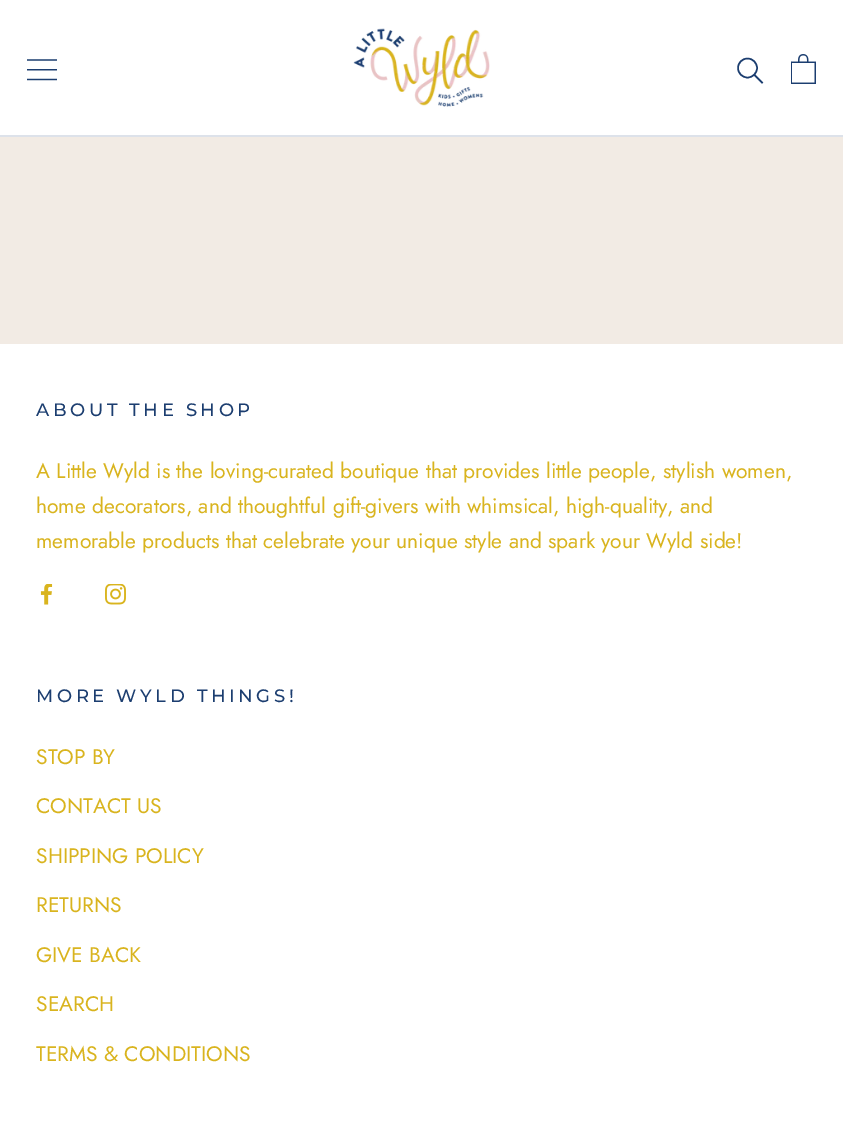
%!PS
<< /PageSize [843 1140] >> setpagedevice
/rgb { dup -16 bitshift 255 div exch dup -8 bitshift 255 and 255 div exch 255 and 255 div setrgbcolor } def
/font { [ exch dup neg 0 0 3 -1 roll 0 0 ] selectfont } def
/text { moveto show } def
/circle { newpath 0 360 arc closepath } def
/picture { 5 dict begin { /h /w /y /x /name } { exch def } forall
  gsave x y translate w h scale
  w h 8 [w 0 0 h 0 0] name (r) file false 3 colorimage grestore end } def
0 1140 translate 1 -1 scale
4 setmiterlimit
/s1 { /Jost-Regular 21 font 16#D9B41E rgb } def
16#F2EBE4 rgb
0 0 843 1140 rectfill
16#FFFFFF rgb
0 0 843 135 rectfill
16#DDE2EA rgb
0 135 843 2 rectfill
(pic1.raw) 27 59 30 22 picture
(pic2.raw) 353 28 137 79 picture
16#1C3E70 rgb
1.5 setlinewidth
2 setlinecap
762 82.5 moveto 754.5 75 lineto stroke
0 setlinecap
747.5 68 9.5 circle stroke
(pic3.raw) 791 54 25 30 picture
16#FFFFFF rgb
0 344 843 796 rectfill
/Montserrat-Medium 18 font
16#1C3E70 rgb
36 416 moveto 3.6 0 (ABOUT THE SHOP) ashow
s1
(A Little Wyld is the loving-curated boutique that provides little people, stylish women,) 36 478 text
(home decorators, and thoughtful gift-givers with whimsical, high-quality, and) 36 513 text
(memorable products that celebrate your unique style and spark your Wyld side!) 36 548 text
(pic4.raw) 40 584 13 21 picture
(pic5.raw) 105 584 21 21 picture
/Montserrat-Medium 18 font
16#1C3E70 rgb
36 702 moveto 3.6 0 (MORE WYLD THINGS!) ashow
s1
(STOP BY) 36 764 text
(CONTACT US) 36 813 text
(SHIPPING POLICY) 36 863 text
(RETURNS) 36 912 text
(GIVE BACK) 36 962 text
(SEARCH) 36 1011 text
(TERMS & CONDITIONS) 36 1061 text
showpage
